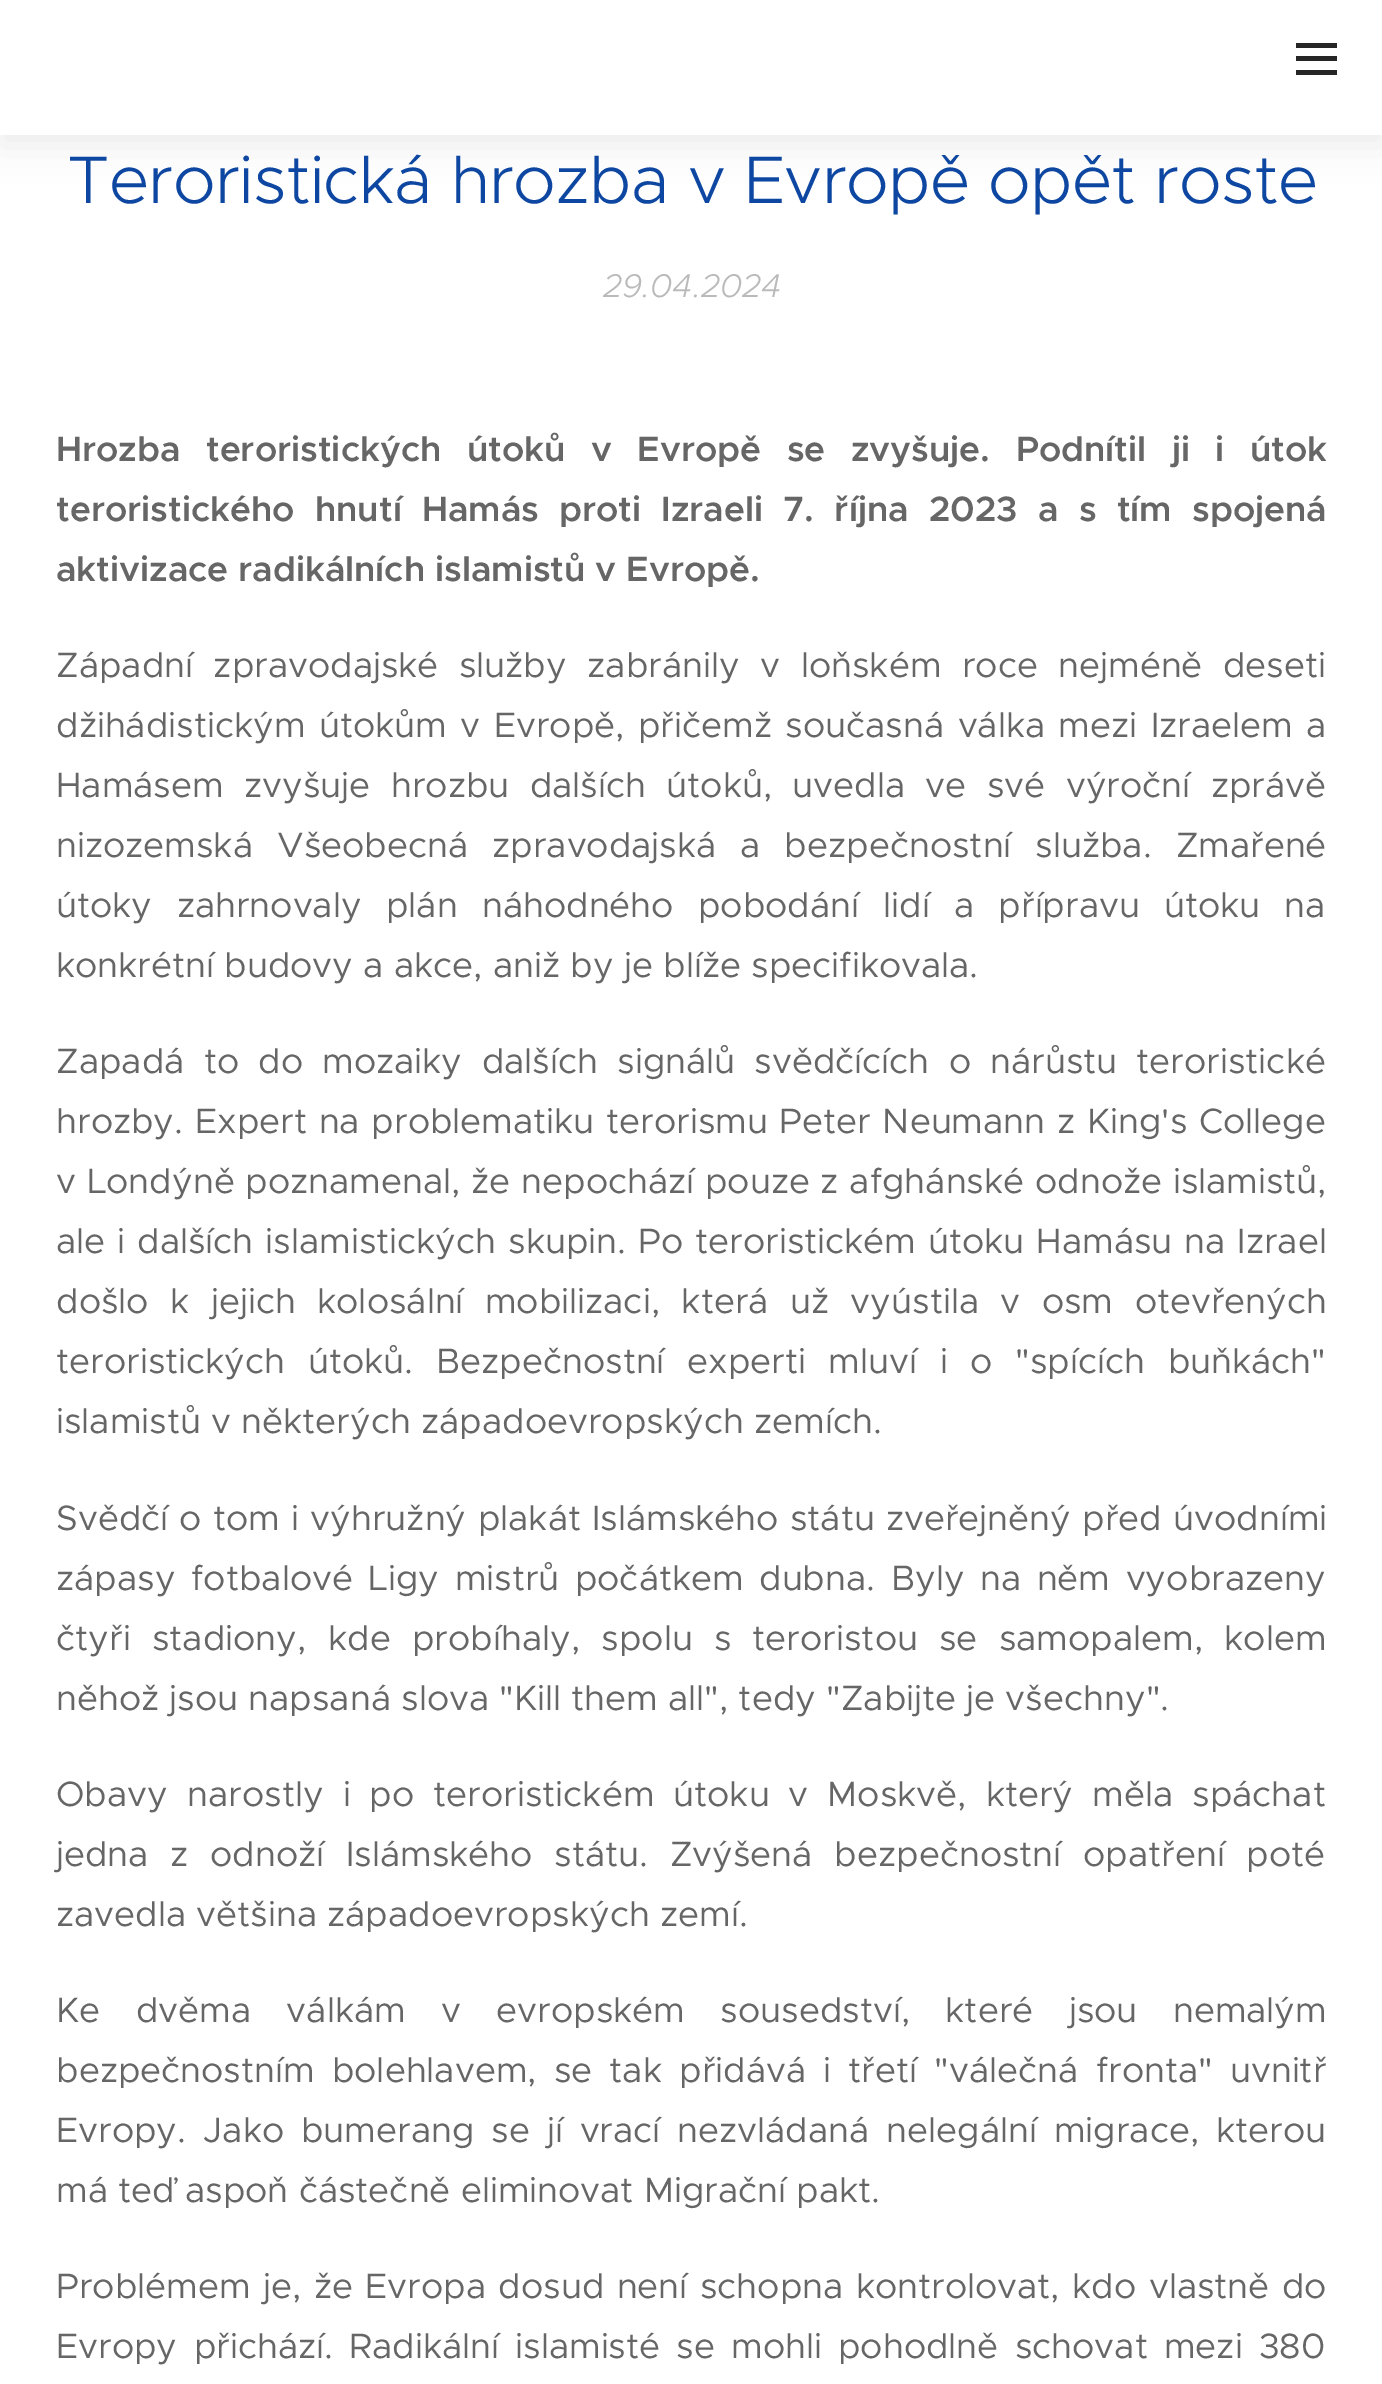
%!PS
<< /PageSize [1382 2384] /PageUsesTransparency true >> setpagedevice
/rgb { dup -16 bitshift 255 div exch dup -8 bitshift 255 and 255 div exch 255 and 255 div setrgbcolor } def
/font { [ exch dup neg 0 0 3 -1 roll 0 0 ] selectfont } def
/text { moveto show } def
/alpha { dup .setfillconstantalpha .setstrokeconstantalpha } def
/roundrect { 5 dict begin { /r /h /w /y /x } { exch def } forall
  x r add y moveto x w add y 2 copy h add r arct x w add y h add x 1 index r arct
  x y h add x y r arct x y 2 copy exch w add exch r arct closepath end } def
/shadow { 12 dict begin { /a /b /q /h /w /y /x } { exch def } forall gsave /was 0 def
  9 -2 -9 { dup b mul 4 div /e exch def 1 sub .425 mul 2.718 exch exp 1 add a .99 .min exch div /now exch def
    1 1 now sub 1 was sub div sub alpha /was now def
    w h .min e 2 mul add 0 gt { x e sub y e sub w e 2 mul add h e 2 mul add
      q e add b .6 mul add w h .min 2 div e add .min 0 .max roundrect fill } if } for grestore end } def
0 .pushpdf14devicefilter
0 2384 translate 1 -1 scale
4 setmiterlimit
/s1 { /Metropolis-LightItalic 33 font 16#BABABA rgb } def
/s2 { /Metropolis-SemiBold 35.3 font 16#666666 rgb } def
/s3 { /Metropolis-Regular 35.3 font 16#666666 rgb } def
16#FFFFFF rgb
0 0 1382 2384 rectfill
16#000000 rgb
0 11 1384 135 0 17 0.07 shadow
16#FFFFFF rgb
0 0 1382 135 rectfill
16#262626 rgb
1296 56 41 5 rectfill
1296 43 41 5 rectfill
1296 70 41 5 rectfill
/Metropolis-Light 67.5 font
16#0D47A1 rgb
67 203 moveto -0.65 0 (Teroristická hrozba v Evropě opět roste) ashow
s1
(29.04.2024) 603 297 text
/Metropolis-SemiBold 35.3 font
16#666666 rgb
56 461 moveto 15.5 0 32 (Hrozba teroristických útoků v Evropě se zvyšuje. Podnítil ji i útok) widthshow
56 521 moveto 10.25 0 32 (teroristického hnutí Hamás proti Izraeli 7. října 2023) widthshow
1038 521 moveto 10.25 0 32 (a s tím spojená) widthshow
(aktivizace radikálních islamistů v Evropě.) 56 581 text
/Metropolis-Regular 35.3 font
56 677 moveto 10.25 0 32 (Západní zpravodajské služby zabránily v loňském roce nejméně deseti) widthshow
56 737 moveto 3.25 0 32 (džihádistickým útokům v Evropě, přičemž současná válka mezi Izraelem a) widthshow
56 797 moveto 10.25 0 32 (Hamásem zvyšuje hrozbu dalších útoků, uvedla ve své výroční zprávě) widthshow
56 857 moveto 13.75 0 32 (nizozemská Všeobecná zpravodajská a bezpečnostní služba. Zmařené) widthshow
56 917 moveto 14 0 32 (útoky zahrnovaly plán náhodného pobodání lidí a přípravu útoku na) widthshow
(konkrétní budovy a akce, aniž by je blíže specifikovala.) 56 977 text
56 1073 moveto 9 0 32 (Zapadá to do mozaiky dalších signálů svědčících o nárůstu teroristické) widthshow
56 1133 moveto 1.5 0 32 (hrozby. Expert na problematiku terorismu Peter Neumann z King's College) widthshow
56 1193 moveto 0.5 0 32 (v Londýně poznamenal, že nepochází pouze z afghánské odnože islamistů,) widthshow
56 1253 moveto 1.75 0 32 (ale i dalších islamistických skupin. Po teroristickém útoku Hamásu na Izrael) widthshow
56 1313 moveto 11.25 0 32 (došlo k jejich kolosální mobilizaci, která už vyústila v osm otevřených) widthshow
56 1373 moveto 12.5 0 32 (teroristických útoků. Bezpečnostní experti mluví i o "spících buňkách") widthshow
(islamistů v některých západoevropských zemích.) 56 1433 text
56 1530 moveto 1 0 32 (Svědčí o tom i výhružný plakát Islámského státu zveřejněný před úvodními) widthshow
56 1590 moveto 5.25 0 32 (zápasy fotbalové Ligy mistrů počátkem dubna. Byly na něm vyobrazeny) widthshow
56 1650 moveto 11 0 32 (čtyři stadiony, kde probíhaly, spolu s teroristou se samopalem, kolem) widthshow
(něhož jsou napsaná slova "Kill them all", tedy "Zabijte je všechny".) 56 1710 text
56 1806 moveto 8.75 0 32 (Obavy narostly i po teroristickém útoku v Moskvě, který měla spáchat) widthshow
56 1866 moveto 11.5 0 32 (jedna z odnoží Islámského státu. Zvýšená bezpečnostní opatření poté) widthshow
(zavedla většina západoevropských zemí.) 56 1926 text
56 2022 moveto 25.25 0 32 (Ke dvěma válkám v evropském sousedství, které jsou nemalým) widthshow
56 2082 moveto 7 0 32 (bezpečnostním bolehlavem, se tak přidává i třetí "válečná fronta" uvnitř) widthshow
56 2142 moveto 6.75 0 32 (Evropy. Jako bumerang se jí vrací nezvládaná nelegální migrace, kterou) widthshow
(má teď aspoň částečně eliminovat Migrační pakt.) 56 2202 text
56 2298 moveto 2.25 0 32 (Problémem je, že Evropa dosud není schopna kontrolovat, kdo vlastně do) widthshow
56 2358 moveto 6 0 32 (Evropy přichází. Radikální islamisté se mohli pohodlně schovat mezi 380) widthshow
.poppdf14devicefilter showpage
